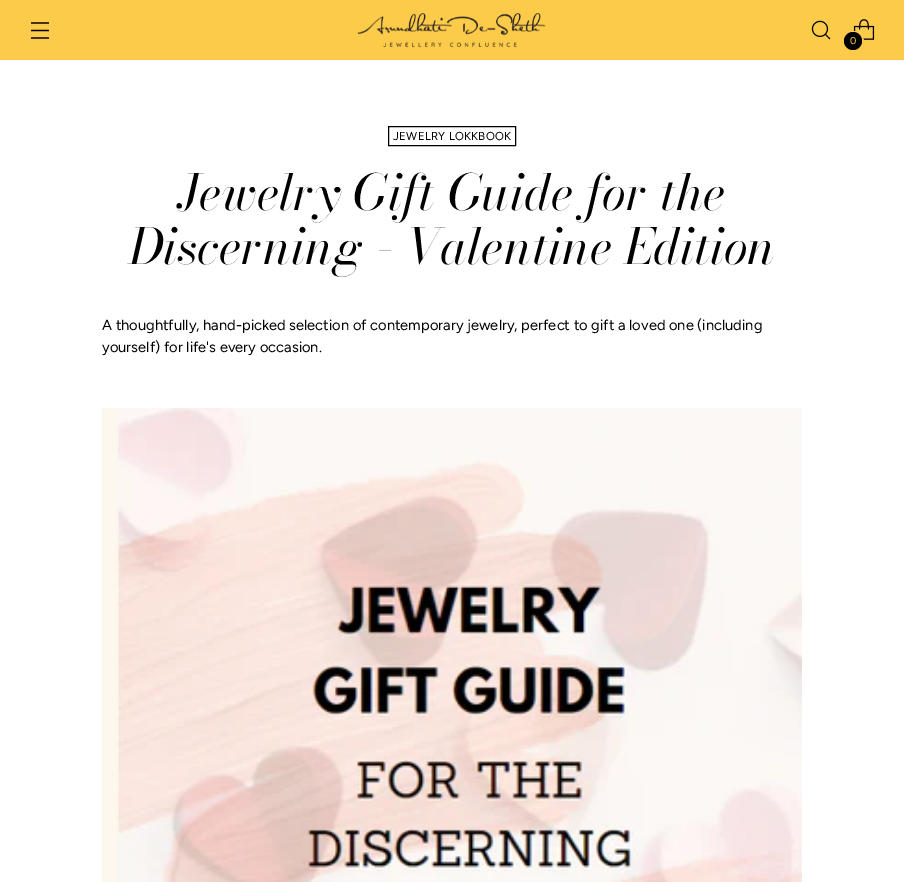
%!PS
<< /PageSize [904 882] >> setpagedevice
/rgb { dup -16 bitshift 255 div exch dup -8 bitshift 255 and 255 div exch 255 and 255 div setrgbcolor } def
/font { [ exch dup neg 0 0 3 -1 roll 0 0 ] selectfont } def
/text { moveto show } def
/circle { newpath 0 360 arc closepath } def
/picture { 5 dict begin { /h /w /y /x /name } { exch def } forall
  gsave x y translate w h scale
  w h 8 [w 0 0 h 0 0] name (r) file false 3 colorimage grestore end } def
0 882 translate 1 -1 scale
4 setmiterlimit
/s1 { /Figtree-Regular 10 font 16#FDCB4A rgb } def
/s2 { /BodoniModa-Italic 49.25 font 16#000000 rgb } def
/s3 { /Figtree-Regular 14.7 font 16#000000 rgb } def
16#FFFFFF rgb
0 0 904 882 rectfill
16#FDCB4A rgb
0 0 904 60 rectfill
16#000000 rgb
1.3 setlinewidth
31 30.5 moveto 49 30.5 lineto 31 23 moveto 49 23 lineto 31 38 moveto 49 38 lineto stroke
(pic1.raw) 357 13 189 35 picture
(pic2.raw) 811 20 20 20 picture
(pic3.raw) 853 19 22 21 picture
16#FDCB4A rgb
2 setlinewidth
853.5 41.5 9.5 circle stroke
16#000000 rgb
853 41 9 circle fill
s1
(0) 850 44 text
16#000000 rgb
1 setlinewidth
388.5 126.5 127 19 rectstroke
/Figtree-Regular 11.5 font
393 140 moveto 0.25 0 (JEWELRY LOKKBOOK) ashow
s2
(Jewelry Gift Guide for the) 178 210 text
(Discerning - Valentine Edition) 129 264 text
s3
(A thoughtfully, hand-picked selection of contemporary jewelry, perfect to gift a loved one \(including) 102 330 text
(yourself\) for life's every occasion.) 102 352 text
(pic4.raw) 102 408 700 474 picture
showpage
